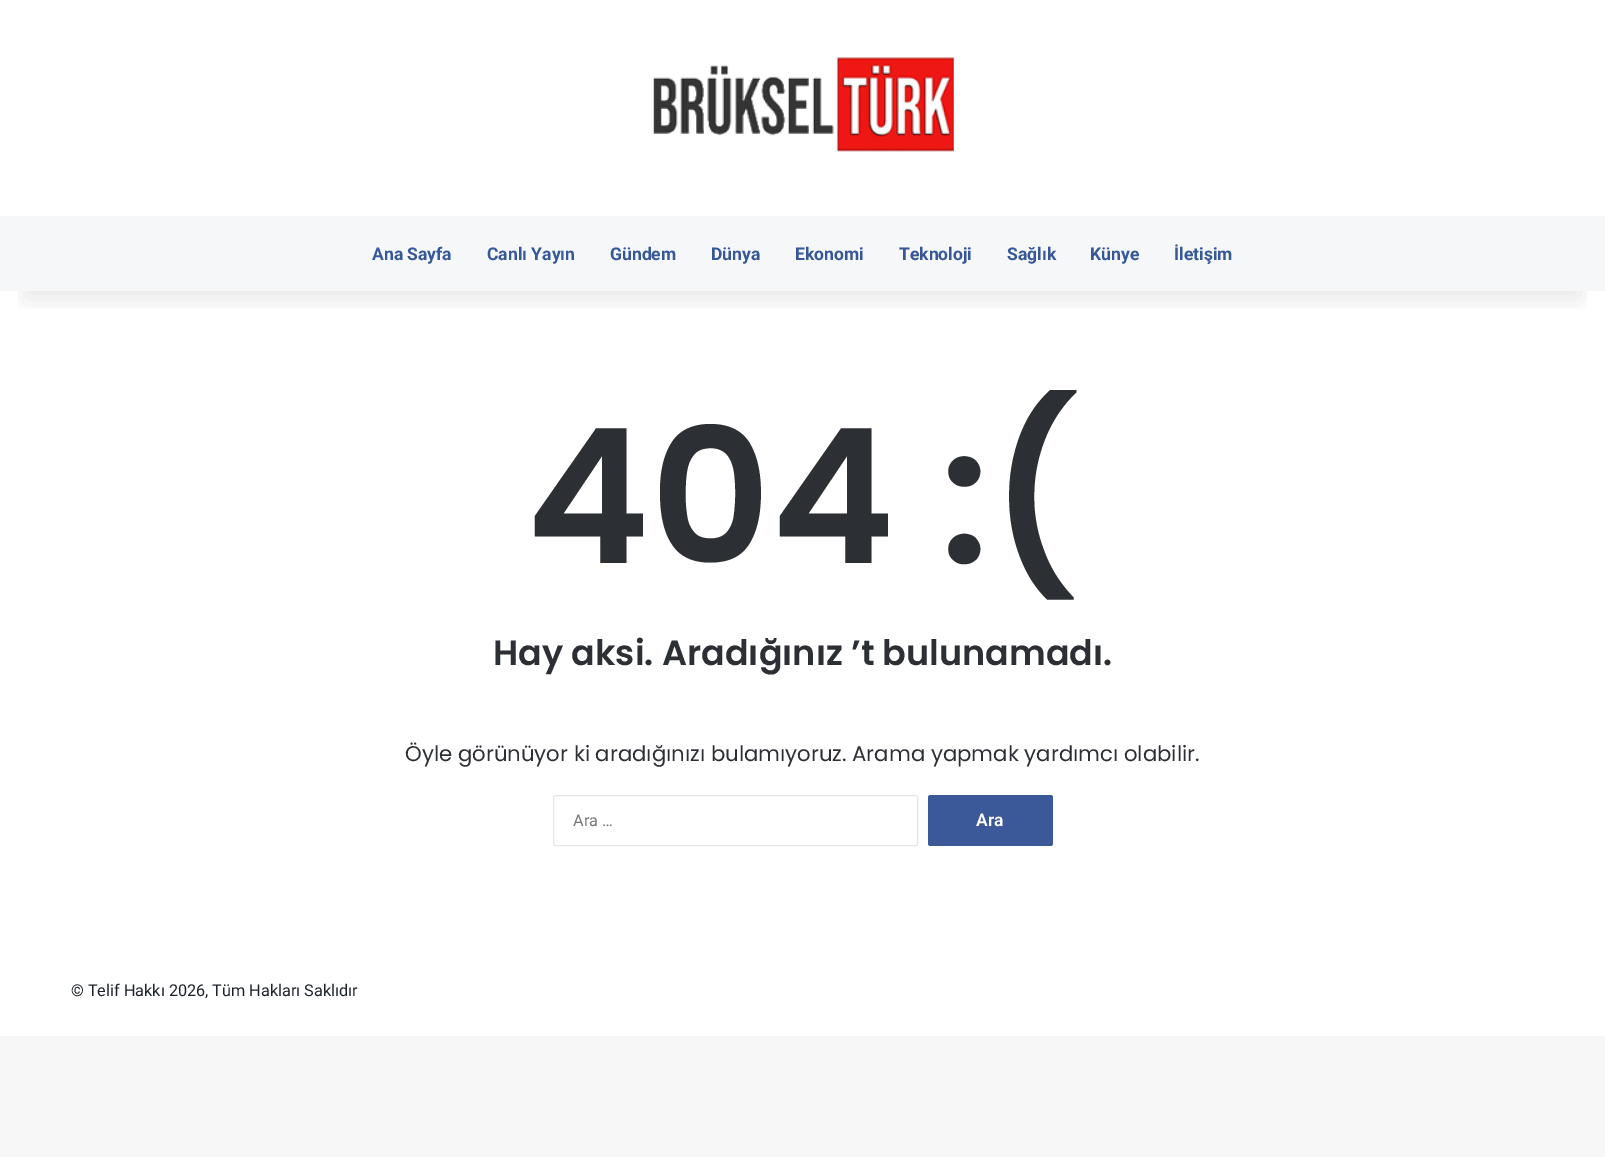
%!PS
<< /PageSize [1605 1157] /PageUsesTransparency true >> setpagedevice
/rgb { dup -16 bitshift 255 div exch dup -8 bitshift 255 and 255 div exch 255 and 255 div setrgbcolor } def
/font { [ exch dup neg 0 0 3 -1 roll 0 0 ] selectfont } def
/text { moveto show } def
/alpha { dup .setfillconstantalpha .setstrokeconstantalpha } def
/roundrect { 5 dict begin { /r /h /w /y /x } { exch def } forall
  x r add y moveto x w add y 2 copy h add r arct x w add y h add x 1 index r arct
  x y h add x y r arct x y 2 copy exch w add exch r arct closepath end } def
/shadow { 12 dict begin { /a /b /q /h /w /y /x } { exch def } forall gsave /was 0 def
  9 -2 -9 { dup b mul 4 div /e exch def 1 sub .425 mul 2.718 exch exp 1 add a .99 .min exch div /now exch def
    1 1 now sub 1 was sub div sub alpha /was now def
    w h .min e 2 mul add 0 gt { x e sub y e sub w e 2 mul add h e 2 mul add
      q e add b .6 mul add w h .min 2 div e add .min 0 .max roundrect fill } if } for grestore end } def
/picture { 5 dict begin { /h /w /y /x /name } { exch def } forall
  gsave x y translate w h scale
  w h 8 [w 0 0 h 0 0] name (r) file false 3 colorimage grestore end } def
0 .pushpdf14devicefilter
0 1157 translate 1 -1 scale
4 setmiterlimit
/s1 { /Roboto-Bold 17.5 font 16#365899 rgb } def
/s2 { /Poppins-SemiBold 187.5 font 16#2C2F34 rgb } def
/s3 { /Poppins-SemiBold 35 font 16#2C2F34 rgb } def
/s4 { /Poppins-Regular 21.25 font 16#2C2F34 rgb } def
/s5 { /Roboto-Regular 16.25 font 16#757575 rgb } def
/s6 { /Roboto-SemiBold 17.5 font 16#FFFFFF rgb } def
/s7 { /Roboto-Regular 16.25 font 16#1D2129 rgb } def
16#F7F7F7 rgb
0 0 1605 1157 rectfill
16#FFFFFF rgb
0 0 1605 1036 rectfill
gsave
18 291 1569 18 rectclip
16#000000 rgb
25 56 1555 242 0 12.5 0.1 shadow
grestore
(pic1.raw) 653 57 301 95 picture
16#F6F7F9 rgb
0 216 1605 75 rectfill
s1
(Ana Sayfa) 372 260 text
(Canlı Yayın) 487 260 text
(Gündem) 610 260 text
(Dünya) 711 260 text
(Ekonomi) 795 260 text
(Teknoloji) 899 260 text
(Sağlık) 1007 260 text
(Künye) 1090 260 text
(İletişim) 1174 260 text
s2
(404 :\() 526 563 text
s3
(Hay aksi. Aradığınız ’t bulunamadı.) 493 665 text
s4
(Öyle görünüyor ki aradığınızı bulamıyoruz. Arama yapmak yardımcı olabilir.) 405 761 text
16#E6E6E6 rgb
553.5 795.5 364 50 2 roundrect stroke
s5
(Ara …) 573 826 text
16#3B5998 rgb
928 795 125 51 2.5 roundrect fill
s6
(Ara) 976 826 text
s7
(© Telif Hakkı 2026, Tüm Hakları Saklıdır) 71 996 text
.poppdf14devicefilter showpage
